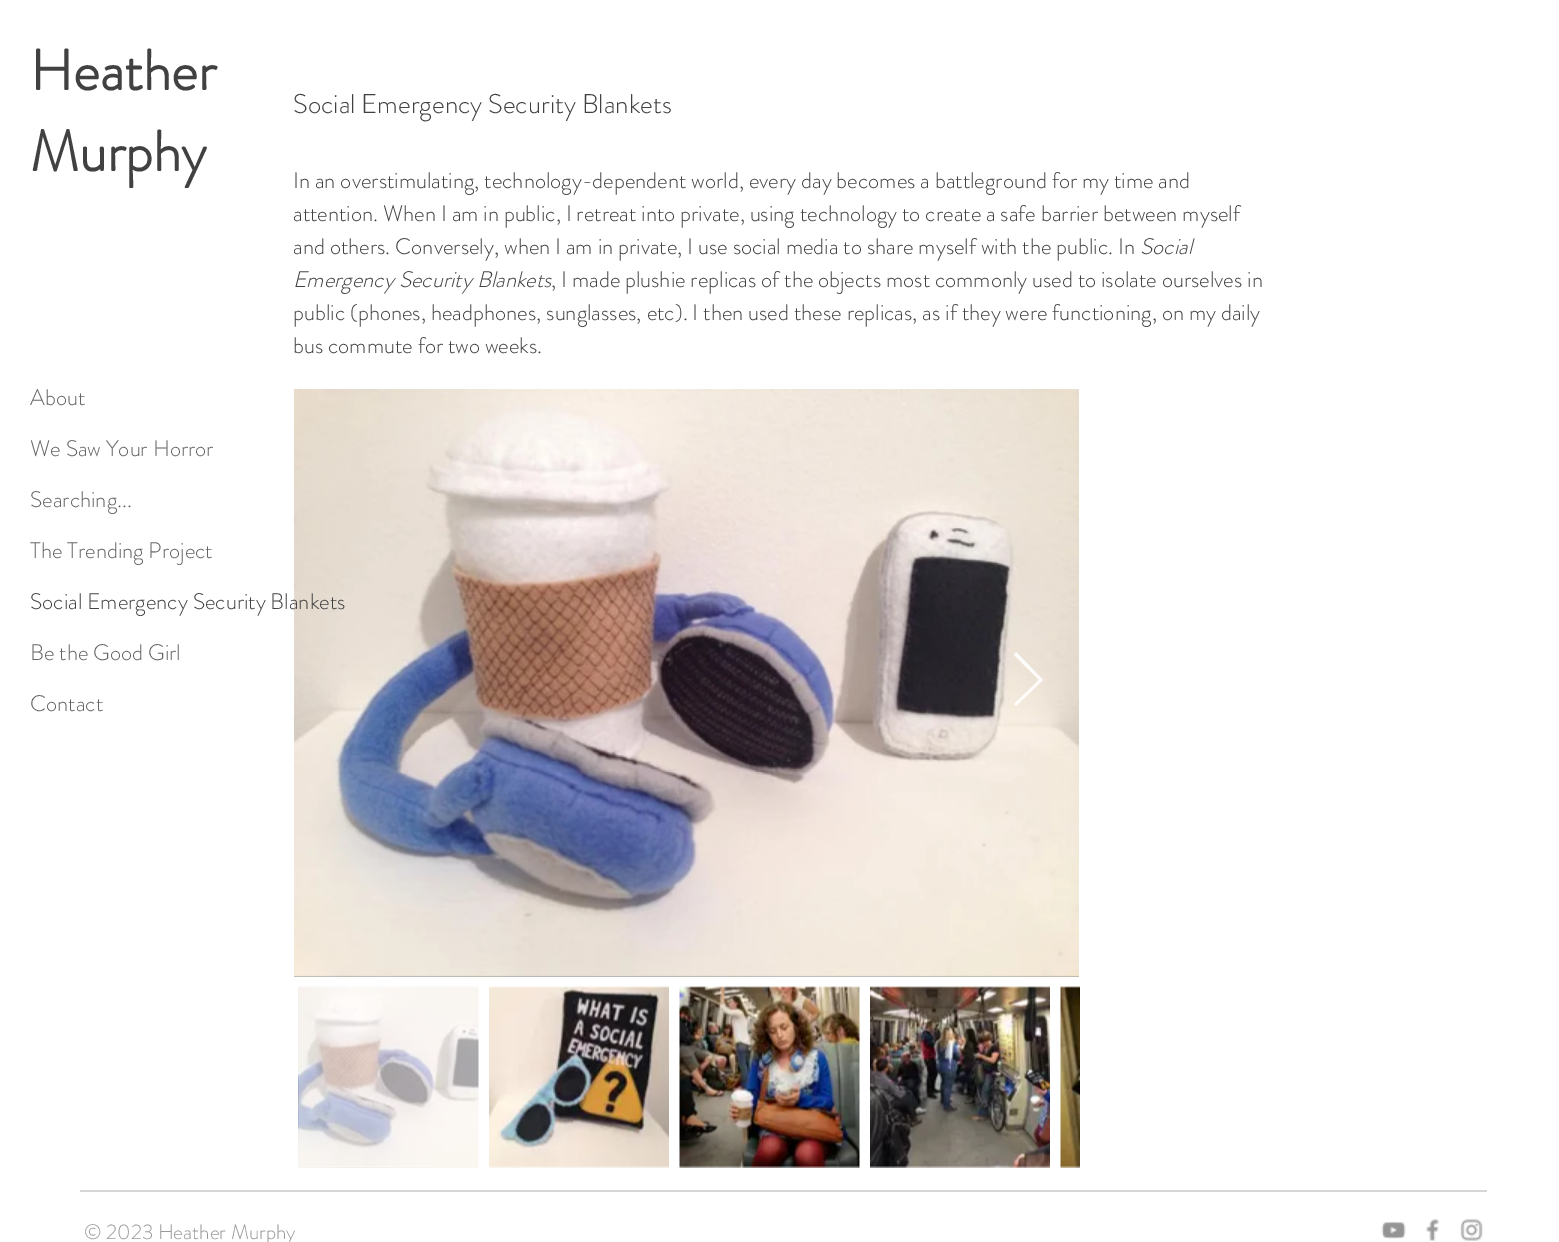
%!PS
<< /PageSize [1559 1242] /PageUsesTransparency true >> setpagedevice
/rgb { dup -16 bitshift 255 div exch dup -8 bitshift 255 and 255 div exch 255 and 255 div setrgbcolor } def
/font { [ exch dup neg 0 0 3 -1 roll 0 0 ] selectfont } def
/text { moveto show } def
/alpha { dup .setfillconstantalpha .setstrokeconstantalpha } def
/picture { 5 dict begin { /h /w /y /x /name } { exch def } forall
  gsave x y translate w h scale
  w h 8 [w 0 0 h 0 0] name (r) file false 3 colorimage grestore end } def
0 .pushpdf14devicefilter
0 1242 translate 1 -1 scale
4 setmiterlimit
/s1 { /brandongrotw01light-Bold 57 font 16#414141 rgb } def
/s2 { /brandongrotw01light-Light 27 font 16#414141 rgb } def
/s3 { /brandongrotw01light-Light 22.5 font 16#414141 rgb } def
/s4 { /brandongrotw01light-LightItalic 22.5 font 16#414141 rgb } def
/s5 { /brandongrotw01light-Light 22.5 font 16#636363 rgb } def
/s6 { /brandongrotw01light-Light 21 font 16#999999 rgb } def
16#FFFFFF rgb
0 0 1559 1242 rectfill
s1
(Heather) 30 90 text
(Murphy) 30 171 text
s2
(Social Emergency Security Blankets) 293 113 text
s3
(In an overstimulating, technology-dependent world, every day becomes a battleground for my time and) 293 188 text
(attention. When I am in public, I retreat into private, using technology to create a safe barrier between myself) 293 221 text
(and others. Conversely, when I am in private, I use social media to share myself with the public. In) 293 254 text
s4
(Social) 1140 254 text
(Emergency Security Blankets) 293 287 text
s3
(, I made plushie replicas of the objects most commonly used to isolate ourselves in) 551 287 text
(public \(phones, headphones, sunglasses, etc\). I then used these replicas, as if they were functioning, on my daily) 293 320 text
(bus commute for two weeks.) 293 353 text
16#999999 rgb
294 975 785 2 rectfill
(pic1.raw) 294 389 785 588 picture
0.9 alpha
16#FFFFFF rgb
1014 655 moveto 1016 652 lineto 1043 680 lineto 1016 706 lineto 1014 704 lineto 1039 680 lineto closepath fill
1 alpha
(pic2.raw) 298 986 181 182 picture
(pic3.raw) 489 986 180 182 picture
(pic4.raw) 679 986 181 182 picture
(pic5.raw) 870 986 180 182 picture
(pic6.raw) 1060 986 20 182 picture
s5
(About) 30 405 text
(We Saw Your Horror) 30 456 text
(Searching...) 30 507 text
(The Trending Project) 30 558 text
s3
(Social Emergency Security Blankets) 30 609 text
s5
(Be the Good Girl) 30 660 text
(Contact) 30 711 text
16#D6D6D4 rgb
80 1190 1407 2 rectfill
s6
(© 2023 Heather Murphy) 84 1239 text
(pic7.raw) 1381 1221 25 18 picture
(pic8.raw) 1426 1219 13 22 picture
(pic9.raw) 1460 1219 23 22 picture
.poppdf14devicefilter showpage
